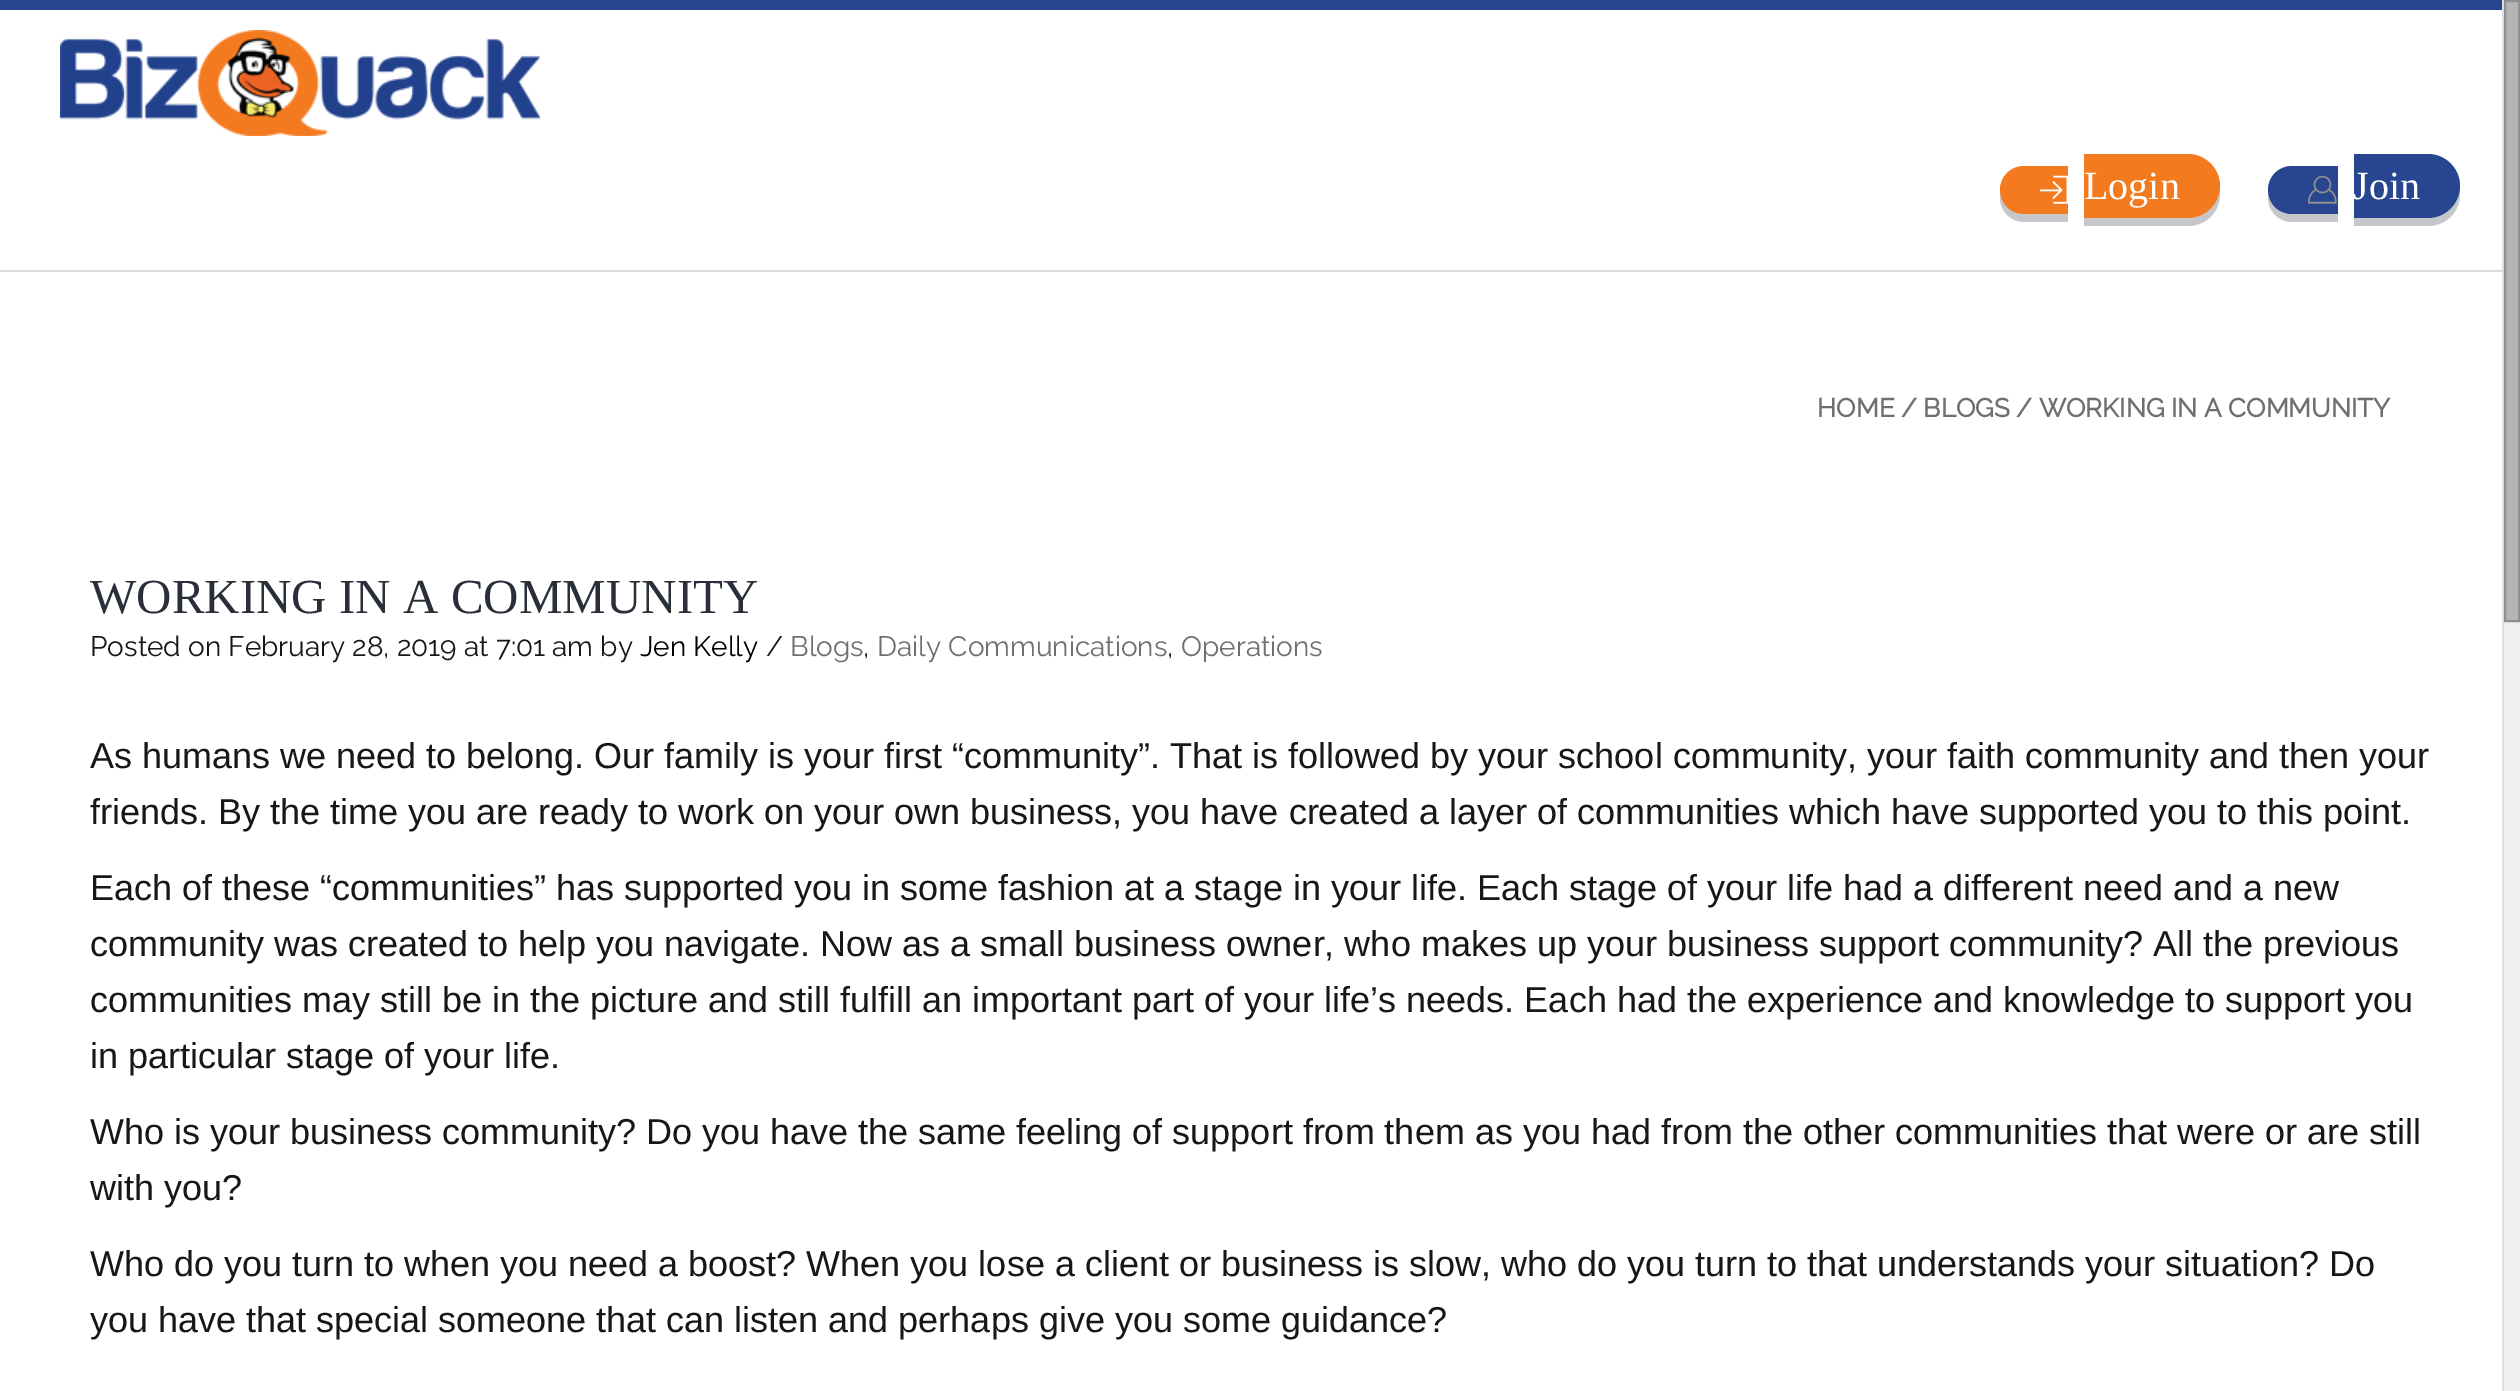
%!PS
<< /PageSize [2520 1391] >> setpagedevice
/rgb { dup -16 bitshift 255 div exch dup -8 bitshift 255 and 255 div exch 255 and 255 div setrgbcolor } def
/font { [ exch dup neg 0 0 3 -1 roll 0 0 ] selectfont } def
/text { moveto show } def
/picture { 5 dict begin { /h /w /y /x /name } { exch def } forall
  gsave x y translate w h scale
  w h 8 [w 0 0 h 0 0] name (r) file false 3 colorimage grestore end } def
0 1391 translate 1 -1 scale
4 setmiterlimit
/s1 { /LiberationSerif-Regular 40 font 16#FFFFFF rgb } def
/s2 { /Raleway-Bold 26 font 16#6F6F6F rgb } def
/s3 { /LiberationSerif-Regular 49 font 16#292F38 rgb } def
/s4 { /Raleway-Thin 28 font 16#171717 rgb } def
/s5 { /Raleway-Thin 28 font 16#000000 rgb } def
/s6 { /Raleway-Thin 28 font 16#6F6F6F rgb } def
/s7 { /LiberationSans-Regular 36 font 16#171717 rgb } def
16#FFFFFF rgb
0 0 2520 1391 rectfill
16#DBDBDB rgb
0 270 2502 2 rectfill
16#28468F rgb
0 0 2502 10 rectfill
(pic1.raw) 60 30 480 106 picture
16#C5C7CB rgb
2000 194 moveto 2000 198 lineto 2000 211 2011 222 2024 222 curveto 2068 222 lineto 2068 214 lineto 2024 214 lineto 2012 214 2002 205 2000 194 curveto closepath fill
16#F47A20 rgb
2024 166 moveto 2068 166 lineto 2068 214 lineto 2024 214 lineto 2010.5 214 2000 203.5 2000 190 curveto 2000 176.5 2010.5 166 2024 166 curveto closepath fill
(pic2.raw) 2040 175 28 29 picture
16#C5C7CB rgb
2084 218 moveto 2084 226 lineto 2188 226 lineto 2206 226 2220 212 2220 194 curveto 2220 190 lineto 2218 206 2204 218 2188 218 curveto closepath fill
16#F47A20 rgb
2084 154 moveto 2188 154 lineto 2205.5 154 2220 168.5 2220 186 curveto 2220 203.5 2205.5 218 2188 218 curveto 2084 218 lineto closepath fill
s1
(Login) 2084 199 text
16#C5C7CB rgb
2268 194 moveto 2268 198 lineto 2268 211 2279 222 2292 222 curveto 2338 222 lineto 2338 214 lineto 2292 214 lineto 2280 214 2270 205 2268 194 curveto closepath fill
16#28468F rgb
2292 166 moveto 2338 166 lineto 2338 214 lineto 2292 214 lineto 2278.5 214 2268 203.5 2268 190 curveto 2268 176.5 2278.5 166 2292 166 curveto closepath fill
(pic3.raw) 2308 175 29 29 picture
16#C5C7CB rgb
2354 218 moveto 2354 226 lineto 2428 226 lineto 2446 226 2460 212 2460 194 curveto 2460 190 lineto 2458 206 2444 218 2428 218 curveto closepath fill
16#28468F rgb
2354 154 moveto 2428 154 lineto 2445.5 154 2460 168.5 2460 186 curveto 2460 203.5 2445.5 218 2428 218 curveto 2354 218 lineto closepath fill
s1
(Join) 2353 199 text
s2
(HOME / BLOGS / WORKING IN A COMMUNITY) 1817 417 text
s3
(WORKING IN A COMMUNITY) 90 613 text
s4
(Posted on February 28, 2019 at 7:01 am by) 90 656 text
s5
(Jen Kelly) 640 656 text
s4
(/) 766 656 text
s6
(Blogs) 790 656 text
s4
(,) 863 656 text
s6
(Daily Communications) 877 656 text
s4
(,) 1167 656 text
s6
(Operations) 1181 656 text
s7
(As humans we need to belong. Our family is your first “community”. That is followed by your school community, your faith community and then your) 90 768 text
(friends. By the time you are ready to work on your own business, you have created a layer of communities which have supported you to this point.) 90 824 text
(Each of these “communities” has supported you in some fashion at a stage in your life. Each stage of your life had a different need and a new) 90 900 text
(community was created to help you navigate. Now as a small business owner, who makes up your business support community? All the previous) 90 956 text
(communities may still be in the picture and still fulfill an important part of your life’s needs. Each had the experience and knowledge to support you) 90 1012 text
(in particular stage of your life.) 90 1068 text
(Who is your business community? Do you have the same feeling of support from them as you had from the other communities that were or are still) 90 1144 text
(with you?) 90 1200 text
(Who do you turn to when you need a boost? When you lose a client or business is slow, who do you turn to that understands your situation? Do) 90 1276 text
(you have that special someone that can listen and perhaps give you some guidance?) 90 1332 text
16#EFEFEF rgb
2504 622 16 769 rectfill
16#DFDFDF rgb
2502 0 2 1391 rectfill
16#B5B5B5 rgb
2505 1 moveto 2519 1 lineto 2519 621 lineto 2505 621 lineto closepath gsave fill grestore
16#909090 rgb
2 setlinewidth
stroke
showpage
